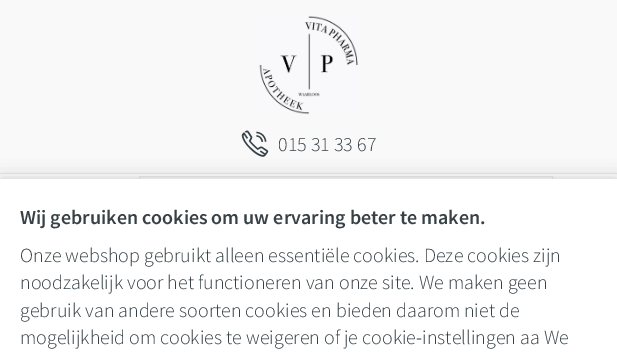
%!PS
<< /PageSize [617 356] /PageUsesTransparency true >> setpagedevice
/rgb { dup -16 bitshift 255 div exch dup -8 bitshift 255 and 255 div exch 255 and 255 div setrgbcolor } def
/font { [ exch dup neg 0 0 3 -1 roll 0 0 ] selectfont } def
/text { moveto show } def
/alpha { dup .setfillconstantalpha .setstrokeconstantalpha } def
/roundrect { 5 dict begin { /r /h /w /y /x } { exch def } forall
  x r add y moveto x w add y 2 copy h add r arct x w add y h add x 1 index r arct
  x y h add x y r arct x y 2 copy exch w add exch r arct closepath end } def
/shadow { 12 dict begin { /a /b /q /h /w /y /x } { exch def } forall gsave /was 0 def
  9 -2 -9 { dup b mul 4 div /e exch def 1 sub .425 mul 2.718 exch exp 1 add a .99 .min exch div /now exch def
    1 1 now sub 1 was sub div sub alpha /was now def
    w h .min e 2 mul add 0 gt { x e sub y e sub w e 2 mul add h e 2 mul add
      q e add b .6 mul add w h .min 2 div e add .min 0 .max roundrect fill } if } for grestore end } def
/picture { 5 dict begin { /h /w /y /x /name } { exch def } forall
  gsave x y translate w h scale
  w h 8 [w 0 0 h 0 0] name (r) file false 3 colorimage grestore end } def
0 .pushpdf14devicefilter
0 356 translate 1 -1 scale
4 setmiterlimit
/s1 { /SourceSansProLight-Light 20 font 16#374146 rgb } def
/s2 { /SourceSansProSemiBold-SemiBold 20 font 16#374146 rgb } def
16#FFFFFF rgb
0 0 617 356 rectfill
16#F9F9FA rgb
0 0 617 173 rectfill
(pic1.raw) 259 16 99 99 picture
(pic2.raw) 241 130 28 27 picture
s1
(015 31 33 67) 278 151 text
16#EBEEEF rgb
0 173 617 1 rectfill
139.5 176.5 413 59 rectstroke
16#000000 rgb
0 179 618 177 0 9.5 0.2 shadow
16#FFFFFF rgb
0 179 617 177 rectfill
s2
(Wij gebruiken cookies om uw ervaring beter te maken.) 20 224 text
s1
(Onze webshop gebruikt alleen essentiële cookies. Deze cookies zijn) 20 262 text
(noodzakelijk voor het functioneren van onze site. We maken geen) 20 289 text
(gebruik van andere soorten cookies en bieden daarom niet de) 20 317 text
(mogelijkheid om cookies te weigeren of je cookie-instellingen aa We) 20 344 text
.poppdf14devicefilter showpage
